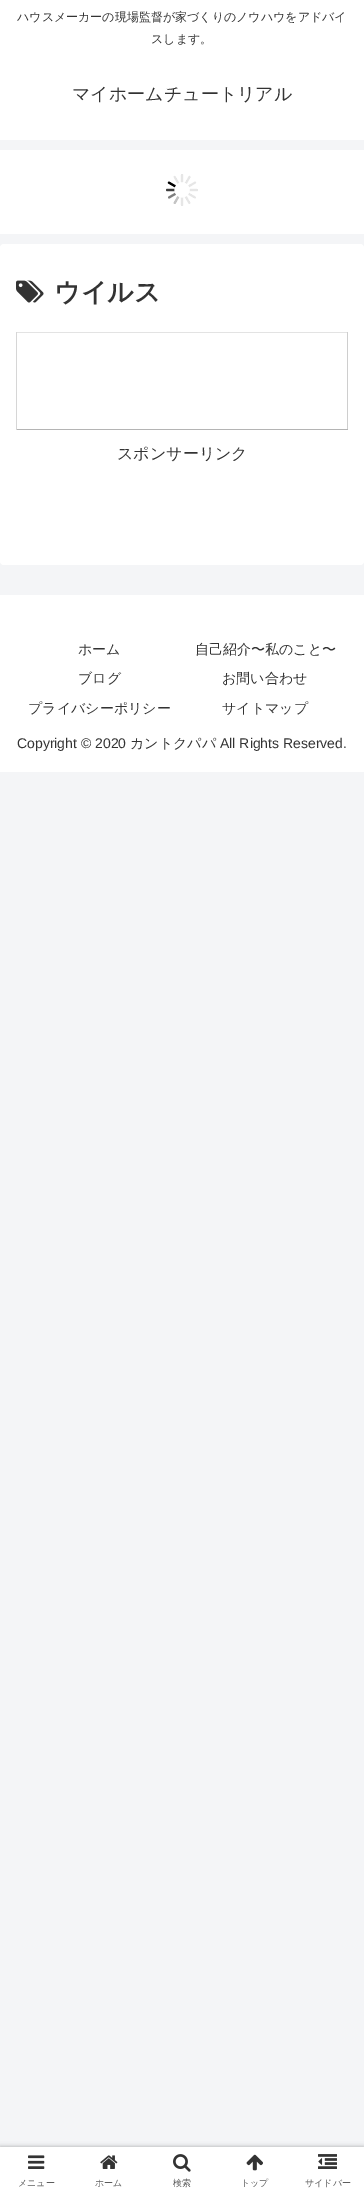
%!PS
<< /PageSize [364 2197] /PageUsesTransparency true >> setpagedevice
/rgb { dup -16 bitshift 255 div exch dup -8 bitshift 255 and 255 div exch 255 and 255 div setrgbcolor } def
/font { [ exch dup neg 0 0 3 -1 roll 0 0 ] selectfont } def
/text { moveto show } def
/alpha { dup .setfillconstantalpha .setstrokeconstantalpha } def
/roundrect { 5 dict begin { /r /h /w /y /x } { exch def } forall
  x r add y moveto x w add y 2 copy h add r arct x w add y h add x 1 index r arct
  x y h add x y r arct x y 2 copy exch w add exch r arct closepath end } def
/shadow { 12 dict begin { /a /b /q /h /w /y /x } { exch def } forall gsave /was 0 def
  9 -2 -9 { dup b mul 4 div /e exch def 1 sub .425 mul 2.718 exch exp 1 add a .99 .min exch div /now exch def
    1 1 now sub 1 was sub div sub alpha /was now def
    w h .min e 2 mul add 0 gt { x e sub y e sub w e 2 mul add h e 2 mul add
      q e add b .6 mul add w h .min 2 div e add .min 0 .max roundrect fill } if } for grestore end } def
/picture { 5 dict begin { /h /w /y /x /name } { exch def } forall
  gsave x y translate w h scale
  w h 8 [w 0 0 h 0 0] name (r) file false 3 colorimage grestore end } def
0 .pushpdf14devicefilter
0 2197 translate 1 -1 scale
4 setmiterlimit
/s1 { /WenQuanYiZenHei-Medium 12 font 16#333333 rgb } def
/s2 { /WenQuanYiZenHei-Medium 18 font 16#333333 rgb } def
/s3 { /WenQuanYiZenHei-Bold 26 font 16#333333 rgb } def
/s4 { /WenQuanYiZenHei-Medium 16 font 16#333333 rgb } def
/s5 { /WenQuanYiZenHei-Medium 14 font 16#333333 rgb } def
/s6 { /LiberationSans-Regular 14 font 16#333333 rgb } def
/s7 { /WenQuanYiZenHei-Medium 9 font 16#5C5C5C rgb } def
16#F4F5F7 rgb
0 0 364 2197 rectfill
16#FFFFFF rgb
0 0 364 140 rectfill
s1
(ハウスメーカーの現場監督が家づくりのノウハウをアドバイ) 17 21 text
(スします。) 151 43 text
s2
(マイホームチュートリアル) 72 100 text
16#FFFFFF rgb
0 150 364 84 rectfill
(pic1.raw) 166 174 32 32 picture
0 244 364 321 4 roundrect fill
(pic2.raw) 16 280 28 23 picture
s3
(ウイルス) 54 301 text
16#E3E3E3 rgb
16 332 332 1 rectfill
16#CECECE rgb
347 332 1 98 rectfill
16#B4B4B4 rgb
16 429 332 1 rectfill
16#D6D6D6 rgb
16 332 1 98 rectfill
s4
(スポンサーリンク) 117 459 text
16#FFFFFF rgb
0 595 364 177 rectfill
s5
(ホーム) 78 654 text
(自己紹介〜私のこと〜) 195 654 text
(ブログ) 78 683 text
(お問い合わせ) 222 683 text
(プライバシーポリシー) 28 713 text
(サイトマップ) 222 713 text
s6
(Copyright © 2020) 17 748 text
s5
(カントクパパ) 130 748 text
s6
(All Rights Reserved.) 220 748 text
16#A9A9A9 rgb
0 2147 364 50 0 2.5 1 shadow
16#FFFFFF rgb
0 2147 364 50 rectfill
(pic3.raw) 28 2155 17 14 picture
s7
(メニュー) 18 2186 text
(pic4.raw) 100 2155 18 14 picture
(ホーム) 95 2186 text
(pic5.raw) 173 2154 18 18 picture
(検索) 173 2186 text
(pic6.raw) 246 2154 17 17 picture
(トップ) 241 2186 text
(pic7.raw) 318 2154 19 15 picture
(サイドバー) 305 2186 text
.poppdf14devicefilter showpage
